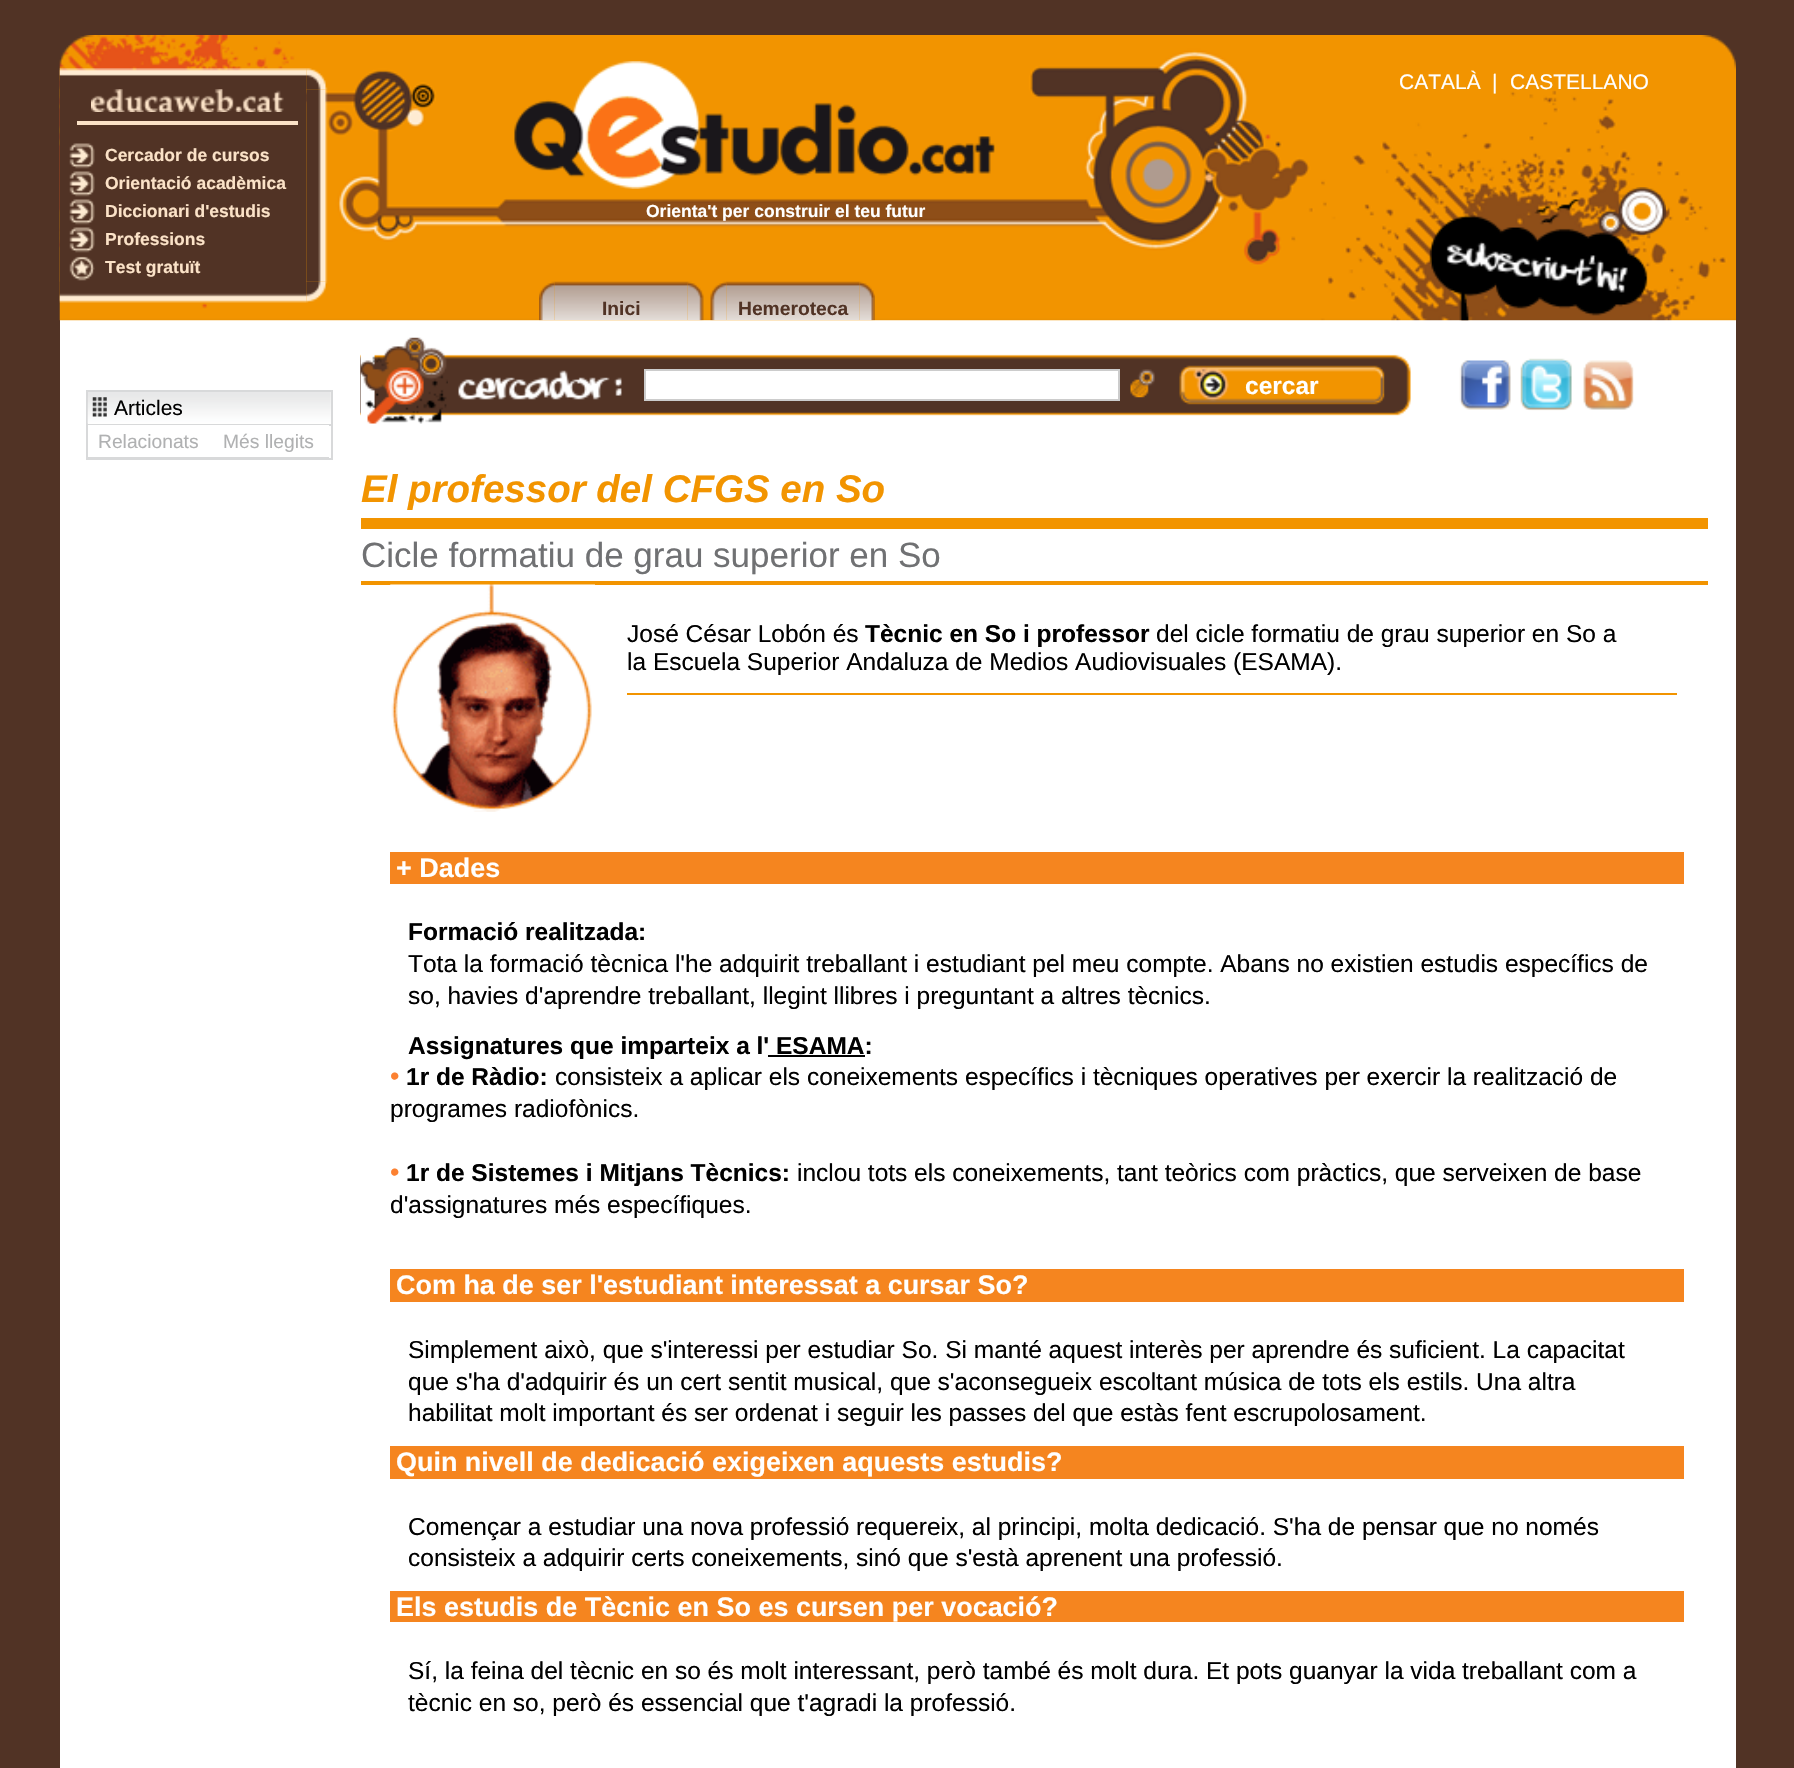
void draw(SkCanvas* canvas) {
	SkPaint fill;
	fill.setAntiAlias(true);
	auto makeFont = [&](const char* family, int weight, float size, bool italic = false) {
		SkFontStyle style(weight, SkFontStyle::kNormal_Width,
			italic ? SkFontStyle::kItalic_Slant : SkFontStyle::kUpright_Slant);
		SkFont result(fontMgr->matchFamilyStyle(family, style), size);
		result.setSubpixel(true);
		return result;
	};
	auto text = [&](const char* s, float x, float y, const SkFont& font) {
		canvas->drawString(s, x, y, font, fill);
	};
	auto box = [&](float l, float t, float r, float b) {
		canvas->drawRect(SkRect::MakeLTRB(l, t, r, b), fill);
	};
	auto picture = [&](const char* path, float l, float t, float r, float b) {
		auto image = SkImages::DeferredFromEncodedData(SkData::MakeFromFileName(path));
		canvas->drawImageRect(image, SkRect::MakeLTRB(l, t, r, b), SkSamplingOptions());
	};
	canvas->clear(0xFF513325);
	fill.setColor(0xFFFFFFFF);
	box(60, 320, 1736, 1768);
	picture("image0.png", 59, 35, 1736, 321);
	picture("image1.png", 1429, 187, 1666, 321);
	picture("image2.png", 59, 68, 307, 90);
	picture("image3.png", 306, 68, 328, 90);
	fill.setColor(0xFF513325);
	box(60, 89, 306, 282);
	picture("image4.png", 91, 89, 284, 112);
	fill.setColor(0xFFFBE2C7);
	box(77, 121, 298, 125);
	picture("image5.png", 69, 143, 95, 169);
	picture("image5.png", 69, 171, 95, 197);
	picture("image5.png", 69, 199, 95, 225);
	picture("image5.png", 69, 227, 95, 253);
	picture("image6.png", 69, 256, 95, 281);
	picture("image7.png", 306, 89, 328, 282);
	picture("image8.png", 59, 281, 307, 303);
	picture("image9.png", 306, 281, 328, 303);
	picture("image10.png", 514, 61, 995, 189);
	picture("image11.png", 539, 281, 555, 321);
	picture("image12.png", 554, 281, 688, 320);
	picture("image13.png", 687, 281, 704, 321);
	picture("image14.png", 710, 281, 727, 321);
	picture("image15.png", 726, 281, 860, 320);
	picture("image16.png", 859, 281, 875, 321);
	fill.setStyle(SkPaint::kStroke_Style);
	fill.setStrokeWidth(2);
	fill.setColor(0xFFD8D9DA);
	canvas->drawRect(SkRect::MakeLTRB(87, 391, 332, 459), fill);
	picture("image17.png", 87, 392, 331, 424);
	fill.setStyle(SkPaint::kFill_Style);
	box(88, 424, 331, 426);
	picture("image18.png", 92, 397, 107, 417);
	fill.setColor(0xFFFFFFFF);
	box(88, 425, 329, 426);
	fill.setColor(0xFFD8D9DA);
	box(88, 457, 329, 458);
	picture("image19.png", 360, 354, 1393, 416);
	fill.setColor(0xFFFFFFFF);
	box(361, 354, 448, 416);
	picture("image20.png", 360, 337, 448, 424);
	picture("image21.png", 458, 370, 622, 400);
	canvas->drawRect(SkRect::MakeLTRB(645, 370, 1119, 400), fill);
	fill.setStyle(SkPaint::kStroke_Style);
	fill.setColor(0xFFCCCCCC);
	canvas->drawRect(SkRect::MakeLTRB(645, 370, 1119, 400), fill);
	picture("image22.png", 1130, 369, 1155, 398);
	picture("image23.png", 1179, 365, 1385, 405);
	picture("image24.png", 1393, 354, 1411, 416);
	picture("image25.png", 1459, 360, 1511, 410);
	picture("image26.png", 1520, 358, 1572, 411);
	picture("image27.png", 1583, 360, 1634, 410);
	fill.setStyle(SkPaint::kFill_Style);
	fill.setColor(0xFFF29400);
	box(361, 518, 1708, 529);
	box(361, 581, 1708, 585);
	picture("image28.png", 390, 584, 595, 812);
	box(627, 693, 1677, 695);
	fill.setColor(0xFFF5851F);
	box(390, 852, 1684, 884);
	fill.setColor(0xFF000000);
	box(768, 1055, 865, 1057);
	fill.setColor(0xFFF5851F);
	box(390, 1269, 1684, 1302);
	box(390, 1446, 1684, 1479);
	box(390, 1591, 1684, 1622);
	auto font1 = makeFont("Liberation Sans", 400, 21);
	fill.setColor(0xFFFFFFFF);
	text("CATALÀ", 1399, 89, font1);
	text("|", 1492, 89, font1);
	text("CASTELLANO", 1510, 89, font1);
	auto font2 = makeFont("Liberation Sans", 700, 17.5f);
	fill.setColor(0xFFFBE2C7);
	text("Cercador de cursos", 105, 161, font2);
	text("Orientació acadèmica", 105, 189, font2);
	text("Diccionari d'estudis", 105, 217, font2);
	text("Professions", 105, 245, font2);
	text("Test gratuït", 105, 273, font2);
	fill.setColor(0xFFFFFFFF);
	text("Orienta't per construir el teu futur", 646, 217, font2);
	auto font3 = makeFont("Liberation Sans", 700, 19.25f);
	fill.setColor(0xFF513325);
	text("Inici", 602, 315, font3);
	text("Hemeroteca", 738, 315, font3);
	fill.setColor(0xFF000000);
	text("Articles", 114, 415, font1);
	auto font4 = makeFont("Liberation Sans", 400, 19.25f);
	fill.setColor(0xFFB0B1B2);
	text("Relacionats", 98, 448, font4);
	text("Més llegits", 223, 448, font4);
	auto font5 = makeFont("Liberation Sans", 700, 24.5f);
	fill.setColor(0xFFFFFFFF);
	text("cercar", 1245, 394, font5);
	auto font6 = makeFont("Liberation Sans", 700, 38.5f, true);
	fill.setColor(0xFFF29400);
	text("El professor del CFGS en So", 361, 502, font6);
	auto font7 = makeFont("Liberation Sans", 400, 35);
	fill.setColor(0xFF707173);
	text("Cicle formatiu de grau superior en So", 361, 567, font7);
	auto font8 = makeFont("Liberation Sans", 400, 24.5f);
	fill.setColor(0xFF000000);
	text("José César Lobón és", 627, 642, font8);
	text("Tècnic en So i professor", 865, 642, font5);
	text("del cicle formatiu de grau superior en So a", 1156, 642, font8);
	text("la Escuela Superior Andaluza de Medios Audiovisuales (ESAMA).", 627, 670, font8);
	auto font9 = makeFont("Liberation Sans", 700, 26.95f);
	fill.setColor(0xFFFFFFFF);
	text("+ Dades", 396, 877, font9);
	fill.setColor(0xFF000000);
	text("Formació realitzada:", 408, 940, font5);
	text("Tota la formació tècnica l'he adquirit treballant i estudiant pel meu compte. Abans no existien estudis específics de", 408, 972, font8);
	text("so, havies d'aprendre treballant, llegint llibres i preguntant a altres tècnics.", 408, 1004, font8);
	text("Assignatures que imparteix a l' ESAMA:", 408, 1054, font5);
	auto font10 = makeFont("Liberation Sans", 400, 26.95f);
	fill.setColor(0xFFFC8131);
	text("•", 390, 1085, font10);
	fill.setColor(0xFF000000);
	text("1r de Ràdio:", 406, 1085, font5);
	text("consisteix a aplicar els coneixements específics i tècniques operatives per exercir la realització de", 555, 1085, font8);
	text("programes radiofònics.", 390, 1117, font8);
	fill.setColor(0xFFFC8131);
	text("•", 390, 1181, font10);
	fill.setColor(0xFF000000);
	text("1r de Sistemes i Mitjans Tècnics:", 406, 1181, font5);
	text("inclou tots els coneixements, tant teòrics com pràctics, que serveixen de base", 797, 1181, font8);
	text("d'assignatures més específiques.", 390, 1213, font8);
	fill.setColor(0xFFFFFFFF);
	text("Com ha de ser l'estudiant interessat a cursar So?", 396, 1294, font9);
	fill.setColor(0xFF000000);
	text("Simplement això, que s'interessi per estudiar So. Si manté aquest interès per aprendre és suficient. La capacitat", 408, 1358, font8);
	text("que s'ha d'adquirir és un cert sentit musical, que s'aconsegueix escoltant música de tots els estils. Una altra", 408, 1390, font8);
	text("habilitat molt important és ser ordenat i seguir les passes del que estàs fent escrupolosament.", 408, 1421, font8);
	fill.setColor(0xFFFFFFFF);
	text("Quin nivell de dedicació exigeixen aquests estudis?", 396, 1471, font9);
	fill.setColor(0xFF000000);
	text("Començar a estudiar una nova professió requereix, al principi, molta dedicació. S'ha de pensar que no només", 408, 1535, font8);
	text("consisteix a adquirir certs coneixements, sinó que s'està aprenent una professió.", 408, 1566, font8);
	fill.setColor(0xFFFFFFFF);
	text("Els estudis de Tècnic en So es cursen per vocació?", 396, 1616, font9);
	fill.setColor(0xFF000000);
	text("Sí, la feina del tècnic en so és molt interessant, però també és molt dura. Et pots guanyar la vida treballant com a", 408, 1679, font8);
	text("tècnic en so, però és essencial que t'agradi la professió.", 408, 1711, font8);
}
